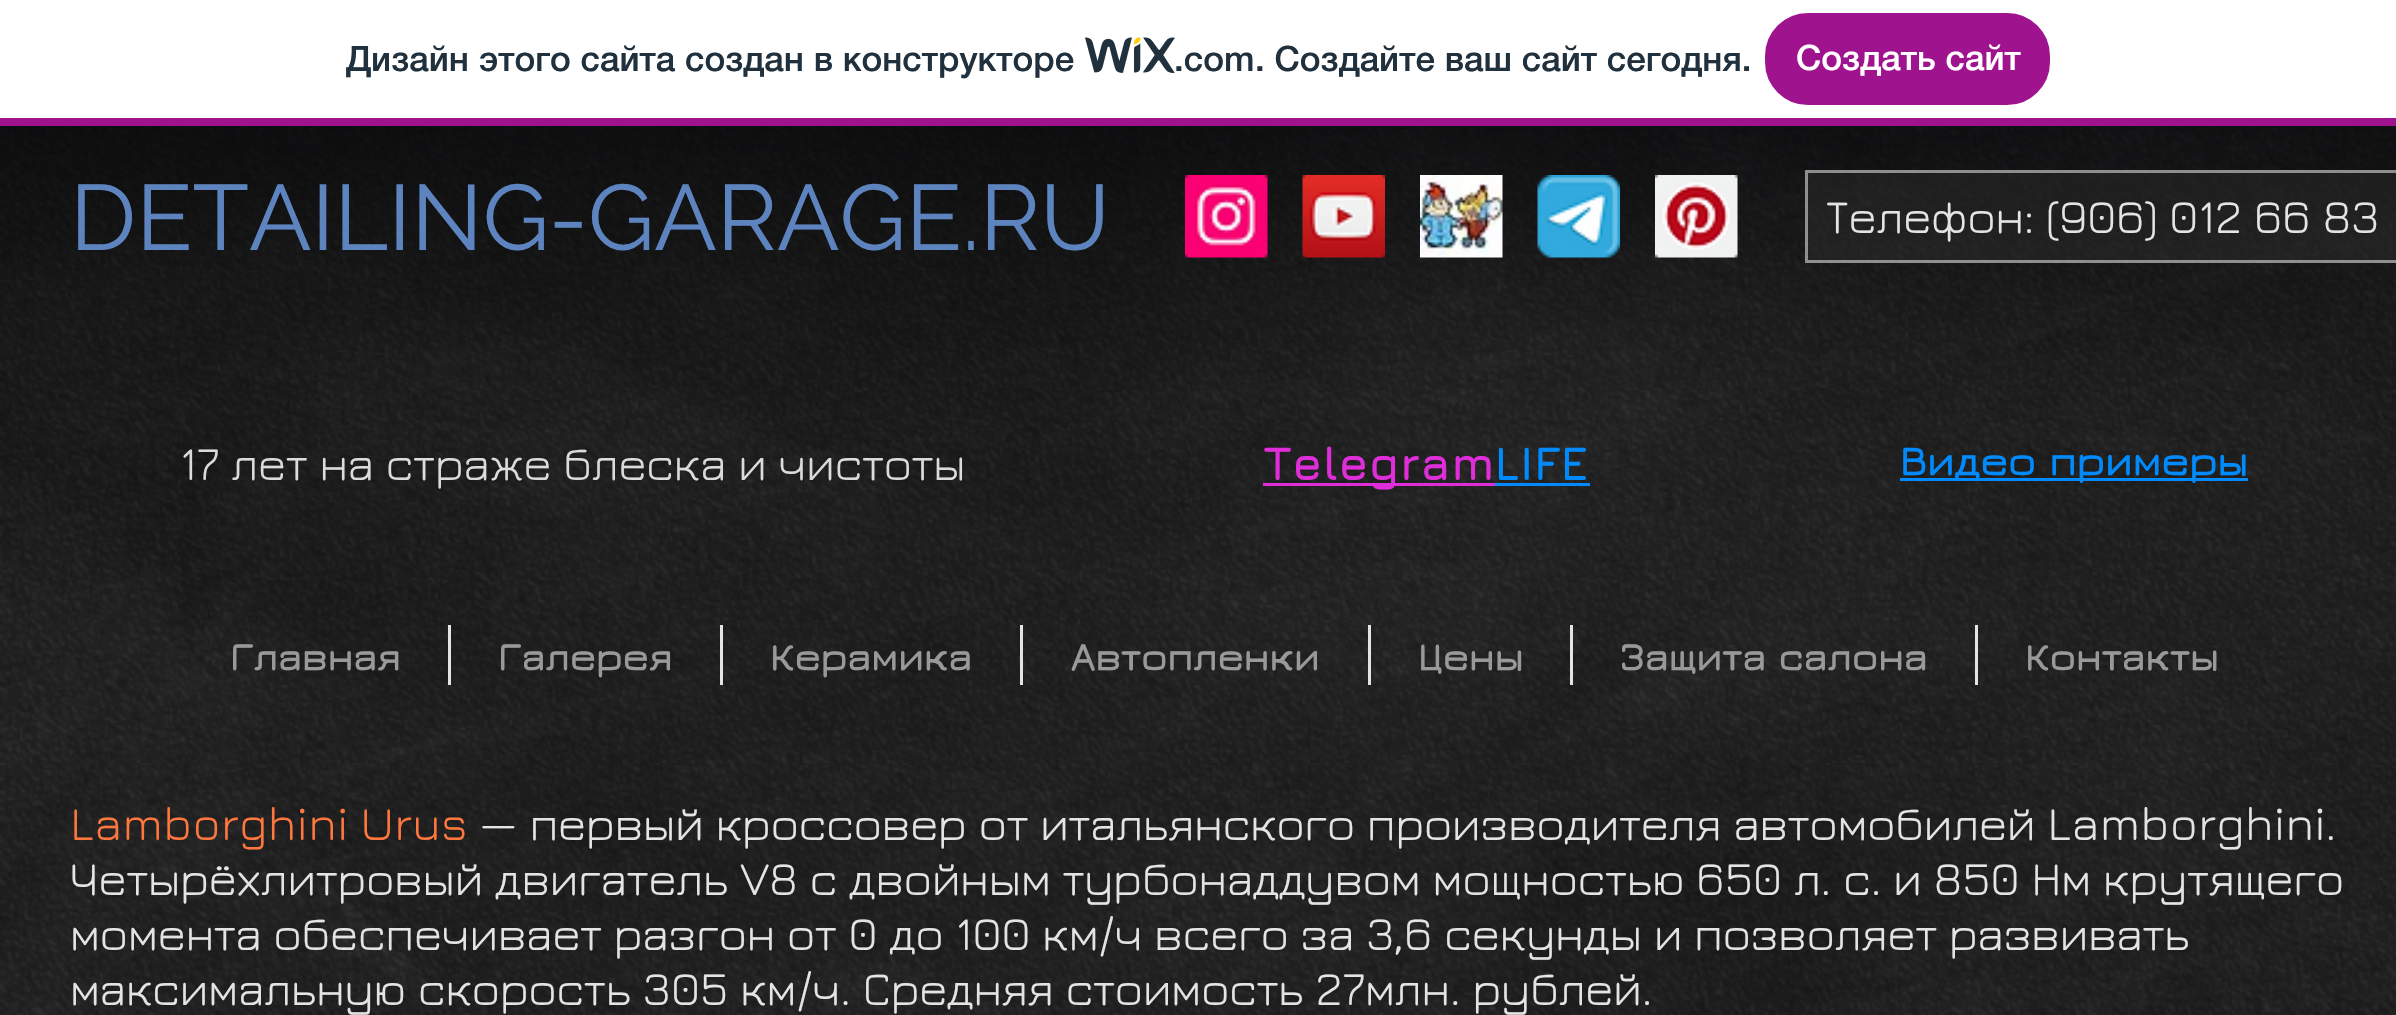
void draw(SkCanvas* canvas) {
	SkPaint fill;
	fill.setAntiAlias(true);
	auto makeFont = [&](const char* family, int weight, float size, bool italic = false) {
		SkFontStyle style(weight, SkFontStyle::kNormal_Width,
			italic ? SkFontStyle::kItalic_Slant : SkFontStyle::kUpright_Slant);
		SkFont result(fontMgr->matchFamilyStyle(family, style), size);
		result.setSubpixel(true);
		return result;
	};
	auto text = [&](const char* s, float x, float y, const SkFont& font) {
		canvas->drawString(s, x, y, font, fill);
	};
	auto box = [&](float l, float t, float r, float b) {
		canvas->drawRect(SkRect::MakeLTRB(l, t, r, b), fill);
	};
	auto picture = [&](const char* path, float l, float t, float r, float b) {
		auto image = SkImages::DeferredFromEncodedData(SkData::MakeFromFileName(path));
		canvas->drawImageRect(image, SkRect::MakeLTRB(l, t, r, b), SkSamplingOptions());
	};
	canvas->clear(0xFFFFFFFF);
	fill.setColor(0xFFA0138E);
	box(0, 118, 2396, 126);
	picture("image0.png", 1085, 37, 1175, 73);
	canvas->drawRoundRect(SkRect::MakeLTRB(1766.5f, 14.5f, 2048.5f, 103.5f), 41.5f, 41.5f, fill);
	fill.setStyle(SkPaint::kStroke_Style);
	fill.setStrokeWidth(3);
	canvas->drawRoundRect(SkRect::MakeLTRB(1766.5f, 14.5f, 2048.5f, 103.5f), 41.5f, 41.5f, fill);
	fill.setStyle(SkPaint::kFill_Style);
	fill.setColor(0xFF000000);
	box(0, 126, 2396, 1015);
	picture("image1.png", 0, 126, 2396, 1015);
	picture("image2.png", 1185, 175, 1268, 258);
	picture("image3.png", 1302, 175, 1385, 258);
	picture("image4.png", 1420, 175, 1503, 258);
	picture("image5.png", 1537, 175, 1620, 258);
	picture("image6.png", 1655, 175, 1738, 258);
	fill.setColor(0x59333333);
	box(1805, 170, 2396, 263);
	fill.setStyle(SkPaint::kStroke_Style);
	fill.setColor(0x8FE4E4E4);
	canvas->drawRect(SkRect::MakeLTRB(1806.5f, 171.5f, 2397.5f, 261.5f), fill);
	fill.setStyle(SkPaint::kFill_Style);
	fill.setColor(0xFFE02DDA);
	box(1263, 483, 1495, 486);
	fill.setColor(0xFF008AFC);
	box(1495, 483, 1590, 486);
	box(1900, 478, 2248, 481);
	fill.setColor(0xFFE4E4E4);
	box(448, 625, 451, 685);
	box(720, 625, 723, 685);
	box(1020, 625, 1023, 685);
	box(1368, 625, 1371, 685);
	box(1570, 625, 1573, 685);
	box(1975, 625, 1978, 685);
	auto font1 = makeFont("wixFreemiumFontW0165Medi", 500, 35);
	fill.setColor(0xFF20303C);
	text("Дизайн этого сайта создан в конструкторе", 346, 71, font1);
	auto font2 = makeFont("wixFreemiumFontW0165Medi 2", 500, 35);
	text(".com", 1174, 71, font2);
	text(". Создайте ваш сайт сегодня.", 1255, 71, font1);
	fill.setColor(0xFFFFFFFF);
	text("Создать сайт", 1796, 70, font1);
	auto font3 = makeFont("Raleway", 400, 92.5f);
	fill.setColor(0xFF5D84BF);
	text("DETAILING-GARAGE.RU", 70, 250, font3);
	auto font4 = makeFont("Jura", 400, 47.5f);
	fill.setColor(0xFFE4E4E4);
	text("Телефон: (906) 012 66 83", 1826, 233, font4);
	fill.setColor(0xFFDBDBDB);
	text("17 лет на страже блеска и чистоты", 180, 480, font4);
	auto font5 = makeFont("Jura", 700, 47.5f);
	fill.setColor(0xFFE02DDA);
	text("Telegram", 1263, 480, font5);
	fill.setColor(0xFF008AFC);
	text("LIFE", 1494, 480, font5);
	auto font6 = makeFont("Jura", 700, 42.5f);
	text("Видео примеры", 1900, 475, font6);
	auto font7 = makeFont("Jura", 700, 40);
	fill.setColor(0xFF999999);
	text("Главная", 230, 670, font7);
	text("Галерея", 498, 670, font7);
	text("Керамика", 770, 670, font7);
	text("Автопленки", 1071, 670, font7);
	text("Цены", 1418, 670, font7);
	text("Защита салона", 1620, 670, font7);
	text("Контакты", 2025, 670, font7);
	fill.setColor(0xFFFF773D);
	text("Lamborghini Urus", 70, 840, font4);
	fill.setColor(0xFFE4E4E4);
	text("— первый кроссовер от итальянского производителя автомобилей Lamborghini.", 479, 840, font4);
	text("Четырёхлитровый двигатель V8 с двойным турбонаддувом мощностью 650 л. с. и 850 Нм крутящего", 70, 895, font4);
	text("момента обеспечивает разгон от 0 до 100 км/ч всего за 3,6 секунды и позволяет развивать", 70, 950, font4);
	text("максимальную скорость 305 км/ч. Средняя стоимость 27млн. рублей.", 70, 1005, font4);
}
